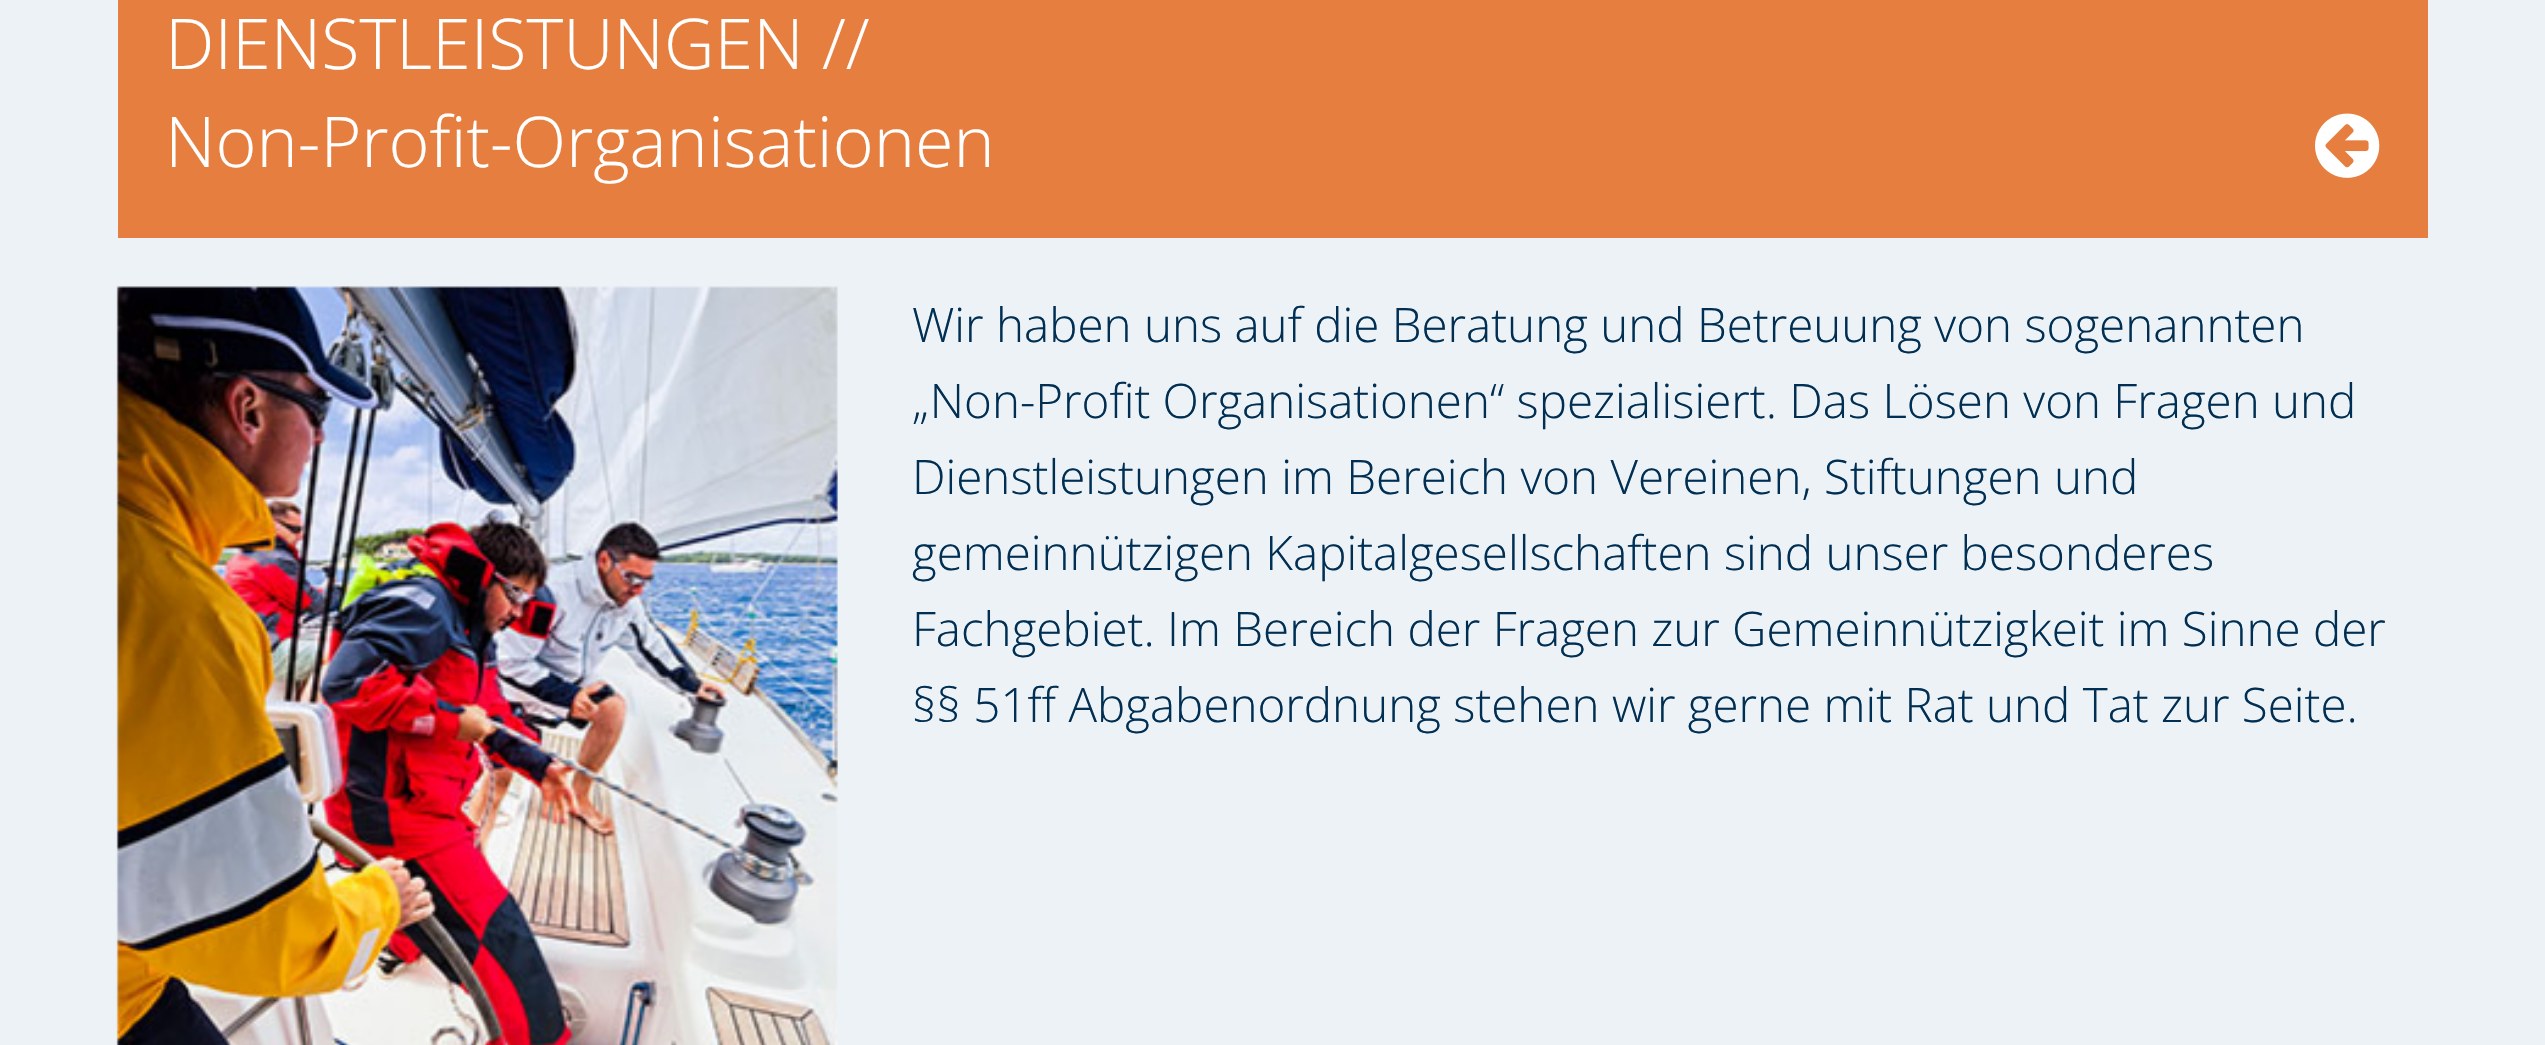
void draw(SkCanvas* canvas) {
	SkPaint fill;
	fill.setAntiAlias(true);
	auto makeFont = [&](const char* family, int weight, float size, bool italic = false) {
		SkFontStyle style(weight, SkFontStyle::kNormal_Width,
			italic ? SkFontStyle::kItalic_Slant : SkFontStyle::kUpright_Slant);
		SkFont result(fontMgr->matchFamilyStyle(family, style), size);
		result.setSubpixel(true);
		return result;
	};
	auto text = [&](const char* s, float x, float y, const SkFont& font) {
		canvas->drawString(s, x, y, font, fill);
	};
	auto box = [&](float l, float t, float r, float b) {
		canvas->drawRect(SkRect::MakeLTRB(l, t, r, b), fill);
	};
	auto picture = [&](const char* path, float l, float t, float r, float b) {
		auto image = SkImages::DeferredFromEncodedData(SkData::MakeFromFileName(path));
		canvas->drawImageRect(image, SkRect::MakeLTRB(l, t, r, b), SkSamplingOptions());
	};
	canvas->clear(0xFFECF2F6);
	fill.setColor(0xFFE57E3E);
	box(118, 0, 2428, 238);
	picture("image0.png", 2315, 113, 2380, 178);
	picture("image1.png", 116, 286, 838, 1045);
	auto font1 = makeFont("Open Sans", 300, 70);
	fill.setColor(0xFFFFFFFF);
	text("DIENSTLEISTUNGEN //", 165, 69, font1);
	text("Non-Profit-Organisationen", 165, 167, font1);
	auto font2 = makeFont("Open Sans", 300, 47.5f);
	fill.setColor(0xFF002F53);
	text("Wir haben uns auf die Beratung und Betreuung von sogenannten", 912, 342, font2);
	text("„Non-Profit Organisationen“ spezialisiert. Das Lösen von Fragen und", 912, 418, font2);
	text("Dienstleistungen im Bereich von Vereinen, Stiftungen und", 912, 494, font2);
	text("gemeinnützigen Kapitalgesellschaften sind unser besonderes", 912, 570, font2);
	text("Fachgebiet. Im Bereich der Fragen zur Gemeinnützigkeit im Sinne der", 912, 646, font2);
	text("§§ 51ff Abgabenordnung stehen wir gerne mit Rat und Tat zur Seite.", 912, 722, font2);
}
